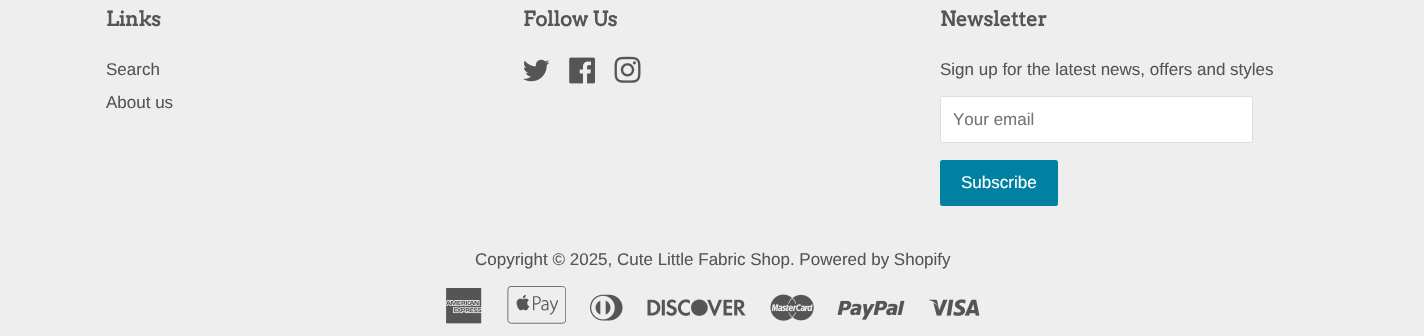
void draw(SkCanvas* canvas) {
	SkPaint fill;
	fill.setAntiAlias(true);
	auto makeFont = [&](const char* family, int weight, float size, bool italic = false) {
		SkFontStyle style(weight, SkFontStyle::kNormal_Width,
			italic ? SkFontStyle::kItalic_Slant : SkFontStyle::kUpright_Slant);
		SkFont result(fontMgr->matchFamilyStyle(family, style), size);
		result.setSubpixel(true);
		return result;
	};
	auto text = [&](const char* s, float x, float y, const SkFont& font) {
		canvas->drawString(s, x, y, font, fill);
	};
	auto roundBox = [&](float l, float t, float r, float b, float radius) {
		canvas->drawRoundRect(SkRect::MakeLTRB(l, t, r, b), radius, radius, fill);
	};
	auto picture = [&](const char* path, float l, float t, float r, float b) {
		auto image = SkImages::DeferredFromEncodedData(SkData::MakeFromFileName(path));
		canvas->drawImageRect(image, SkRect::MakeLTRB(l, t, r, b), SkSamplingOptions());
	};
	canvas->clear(0xFFEEEEEE);
	picture("image0.png", 523, 59, 550, 82);
	picture("image1.png", 569, 57, 595, 84);
	picture("image2.png", 614, 56, 641, 83);
	fill.setColor(0xFFFFFFFF);
	canvas->drawRoundRect(SkRect::MakeLTRB(940.5f, 96.5f, 1252.5f, 142.5f), 2, 2, fill);
	fill.setStyle(SkPaint::kStroke_Style);
	fill.setStrokeWidth(1);
	fill.setColor(0xFFDDDDDD);
	canvas->drawRoundRect(SkRect::MakeLTRB(940.5f, 96.5f, 1252.5f, 142.5f), 2, 2, fill);
	fill.setStyle(SkPaint::kFill_Style);
	fill.setColor(0xFF0081A3);
	roundBox(940, 160, 1058, 206, 2.5f);
	picture("image3.png", 446, 288, 482, 324);
	picture("image4.png", 507, 286, 566, 324);
	picture("image5.png", 590, 294, 623, 321);
	picture("image6.png", 647, 299, 746, 316);
	picture("image7.png", 770, 294, 814, 321);
	picture("image8.png", 837, 300, 905, 320);
	picture("image9.png", 928, 299, 980, 316);
	auto font1 = makeFont("Arvo", 700, 20);
	fill.setColor(0xFF555555);
	text("Links", 106, 26, font1);
	auto font2 = makeFont("Liberation Sans", 400, 17);
	text("Search", 106, 75, font2);
	text("About us", 106, 108, font2);
	text("Follow Us", 523, 26, font1);
	text("Newsletter", 940, 26, font1);
	text("Sign up for the latest news, offers and styles", 940, 75, font2);
	fill.setColor(0xFF757575);
	text("Your email", 953, 125, font2);
	fill.setColor(0xFFFFFFFF);
	text("Subscribe", 961, 188, font2);
	fill.setColor(0xFF555555);
	text("Copyright © 2025, Cute Little Fabric Shop. Powered by Shopify", 475, 265, font2);
}
